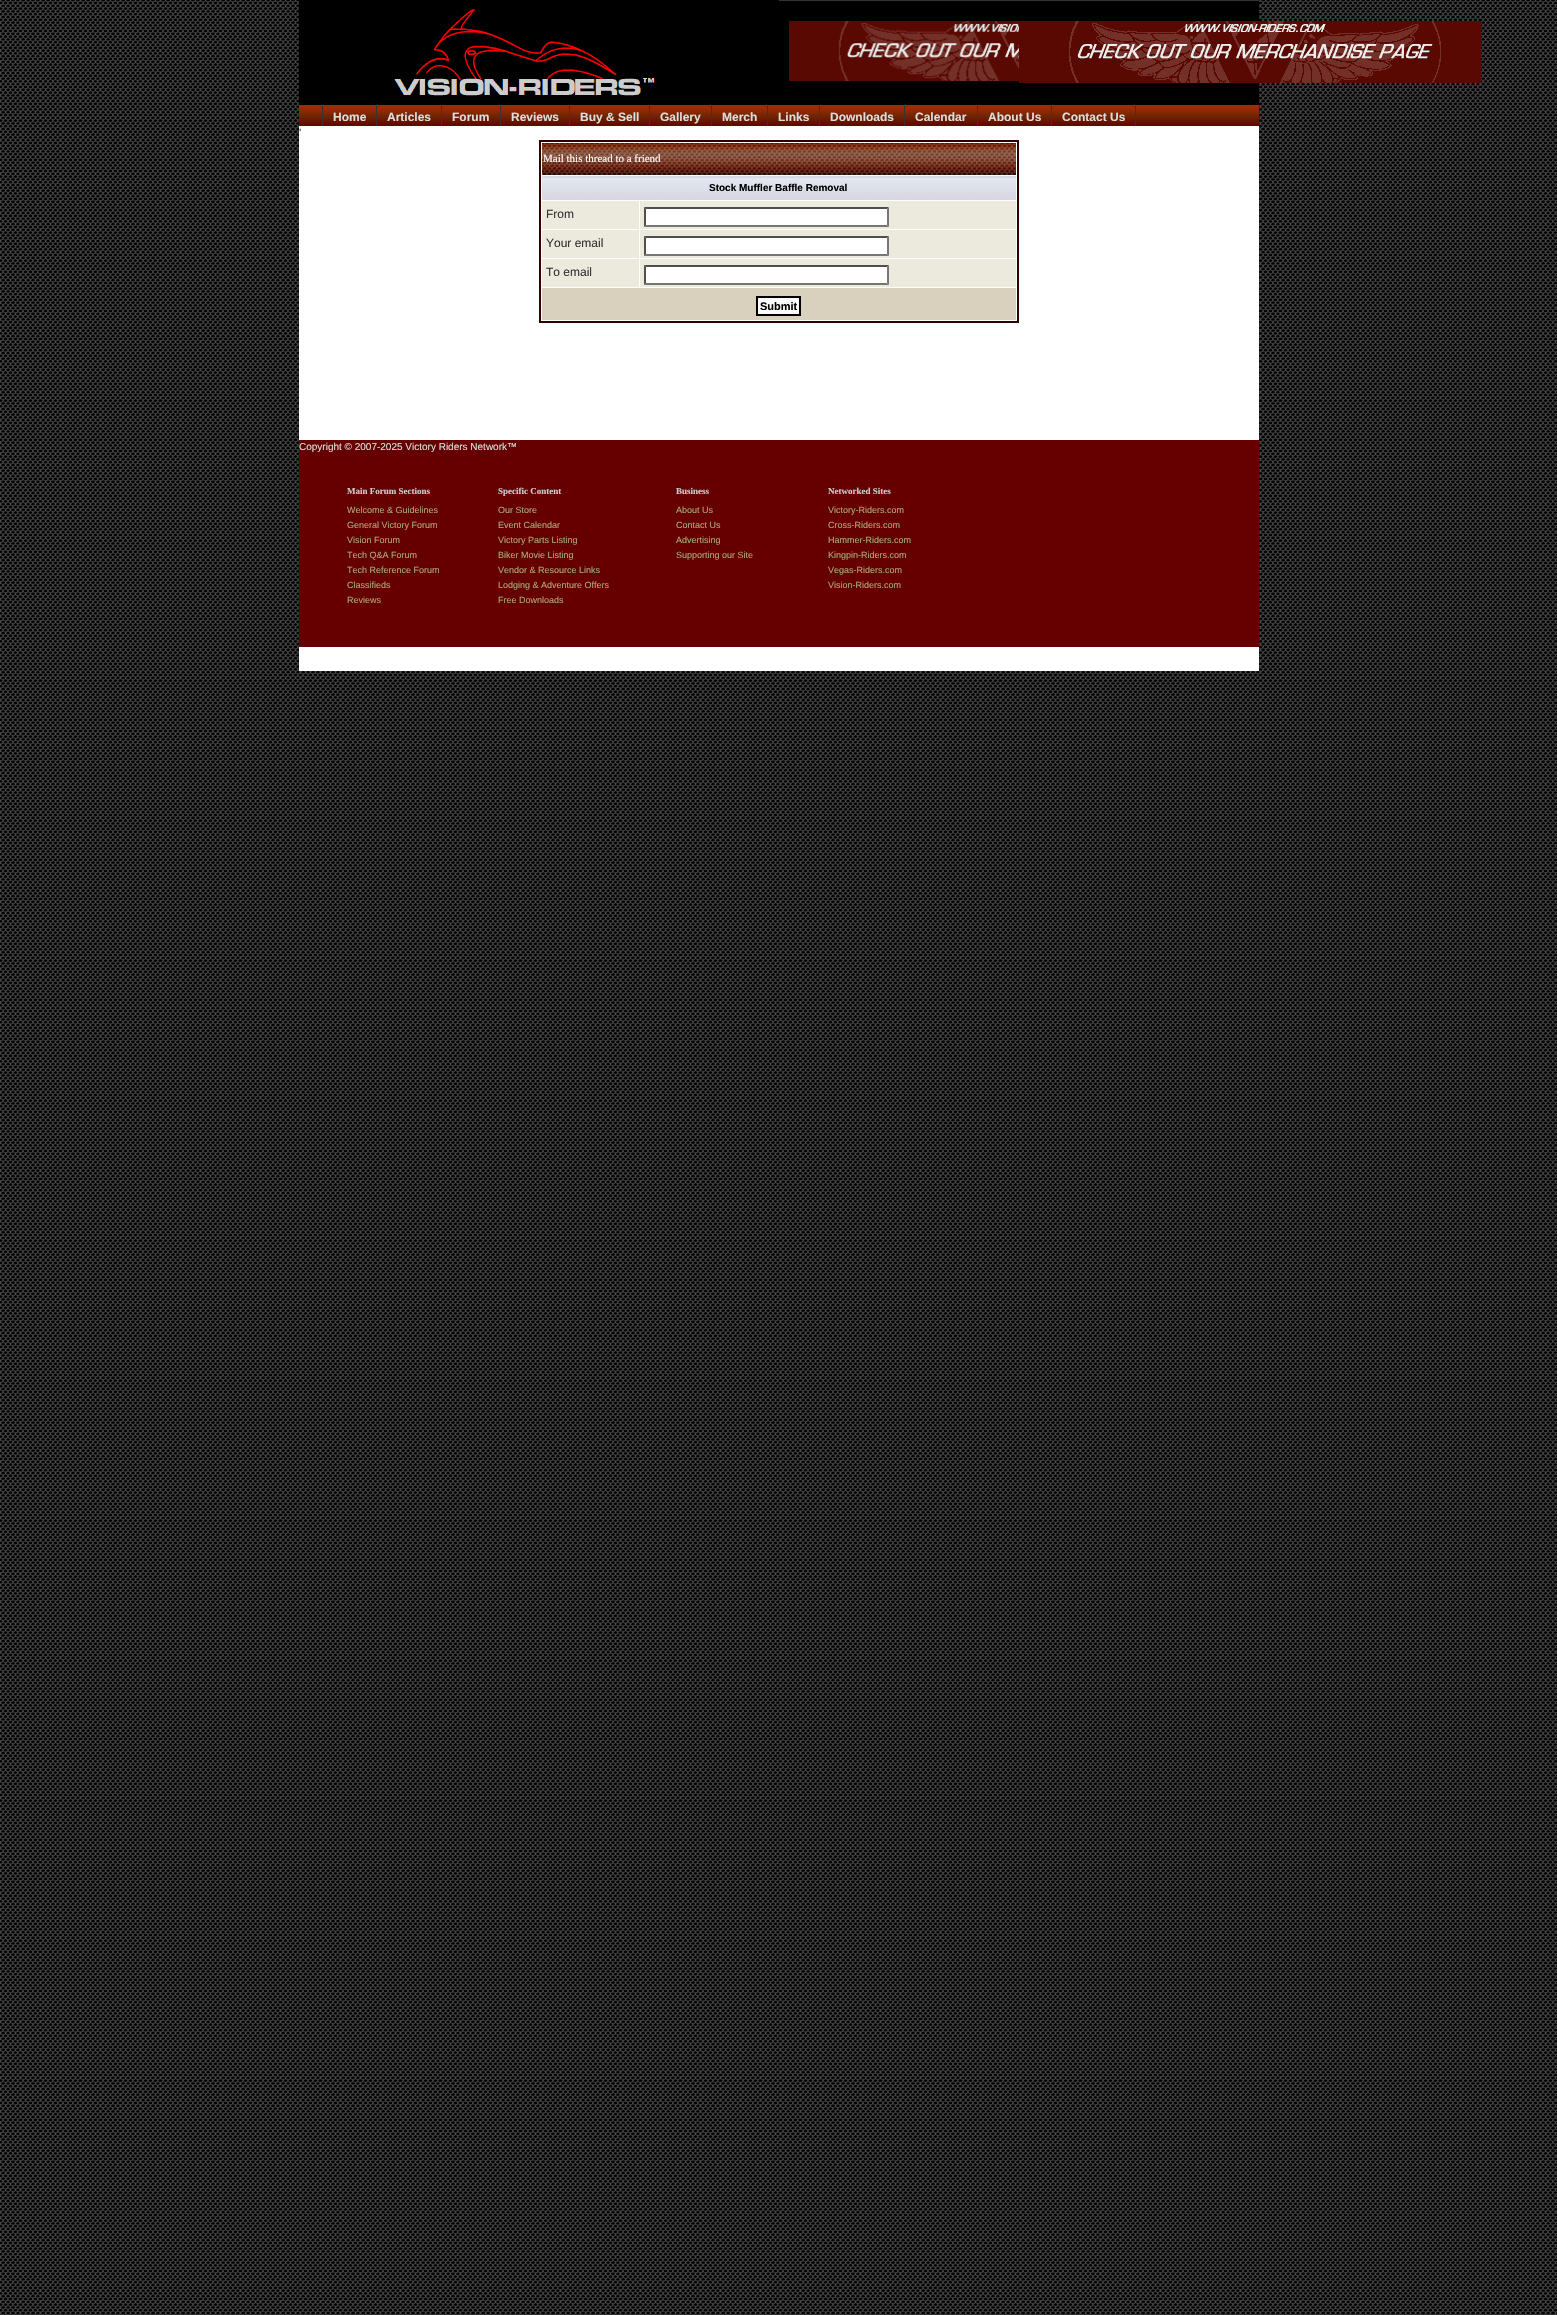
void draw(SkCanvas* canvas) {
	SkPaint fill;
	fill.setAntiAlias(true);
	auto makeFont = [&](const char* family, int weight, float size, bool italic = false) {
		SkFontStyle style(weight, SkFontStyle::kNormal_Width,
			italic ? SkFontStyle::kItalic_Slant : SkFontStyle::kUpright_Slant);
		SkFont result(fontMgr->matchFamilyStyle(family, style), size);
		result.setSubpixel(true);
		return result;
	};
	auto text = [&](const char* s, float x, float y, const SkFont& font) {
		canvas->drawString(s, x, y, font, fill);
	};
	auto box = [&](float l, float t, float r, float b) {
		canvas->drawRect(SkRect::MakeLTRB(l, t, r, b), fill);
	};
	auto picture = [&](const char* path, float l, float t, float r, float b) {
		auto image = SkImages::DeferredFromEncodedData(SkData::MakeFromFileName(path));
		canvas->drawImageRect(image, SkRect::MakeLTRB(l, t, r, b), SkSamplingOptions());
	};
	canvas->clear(0xFFFFFFFF);
	picture("image0.png", 0, 0, 1557, 2315);
	fill.setColor(0xFF000000);
	box(299, 0, 1259, 105);
	picture("image1.png", 394, 9, 655, 96);
	fill.setColor(0xFF333333);
	box(779, 0, 1259, 1);
	picture("image2.png", 789, 21, 1019, 81);
	picture("image3.png", 1019, 21, 1481, 83);
	picture("image4.png", 299, 105, 322, 126);
	box(322, 105, 323, 126);
	picture("image5.png", 323, 105, 376, 126);
	box(376, 105, 377, 126);
	picture("image6.png", 377, 105, 441, 126);
	box(441, 105, 442, 126);
	picture("image7.png", 442, 105, 500, 126);
	box(500, 105, 501, 126);
	picture("image8.png", 501, 105, 569, 126);
	box(569, 105, 570, 126);
	picture("image9.png", 570, 105, 649, 126);
	box(649, 105, 650, 126);
	picture("image10.png", 650, 105, 711, 126);
	box(711, 105, 712, 126);
	picture("image11.png", 712, 105, 767, 126);
	box(767, 105, 768, 126);
	picture("image12.png", 768, 105, 819, 126);
	box(819, 105, 820, 126);
	picture("image13.png", 820, 105, 904, 126);
	box(904, 105, 905, 126);
	picture("image14.png", 905, 105, 977, 126);
	box(977, 105, 978, 126);
	picture("image15.png", 978, 105, 1051, 126);
	box(1051, 105, 1052, 126);
	picture("image16.png", 1052, 105, 1135, 126);
	box(1135, 105, 1136, 126);
	picture("image17.png", 1136, 105, 1259, 126);
	fill.setColor(0xFFFFFFFF);
	box(299, 126, 1259, 671);
	fill.setStyle(SkPaint::kStroke_Style);
	fill.setStrokeWidth(2);
	fill.setColor(0xFF330000);
	canvas->drawRect(SkRect::MakeLTRB(540, 141, 1018, 322), fill);
	picture("image18.png", 542, 143, 1016, 175);
	picture("image19.png", 542, 176, 1016, 200);
	fill.setStyle(SkPaint::kFill_Style);
	fill.setColor(0xFFECE9DD);
	box(542, 201, 639, 229);
	box(640, 201, 1016, 229);
	fill.setColor(0xFFFFFFFF);
	box(644, 207, 889, 227);
	fill.setColor(0xFF4F4F4F);
	canvas->drawPath(SkPathBuilder().moveTo(644, 207).lineTo(889, 207).lineTo(887, 209).lineTo(646, 209).close().detach(), fill);
	fill.setColor(0xFF767676);
	canvas->drawPath(SkPathBuilder().moveTo(889, 207).lineTo(889, 227).lineTo(887, 225).lineTo(887, 209).close().detach(), fill);
	canvas->drawPath(SkPathBuilder().moveTo(889, 227).lineTo(644, 227).lineTo(646, 225).lineTo(887, 225).close().detach(), fill);
	fill.setColor(0xFF4F4F4F);
	canvas->drawPath(SkPathBuilder().moveTo(644, 227).lineTo(644, 207).lineTo(646, 209).lineTo(646, 225).close().detach(), fill);
	fill.setColor(0xFFECE9DD);
	box(542, 230, 639, 258);
	box(640, 230, 1016, 258);
	fill.setColor(0xFFFFFFFF);
	box(644, 236, 889, 256);
	fill.setColor(0xFF4F4F4F);
	canvas->drawPath(SkPathBuilder().moveTo(644, 236).lineTo(889, 236).lineTo(887, 238).lineTo(646, 238).close().detach(), fill);
	fill.setColor(0xFF767676);
	canvas->drawPath(SkPathBuilder().moveTo(889, 236).lineTo(889, 256).lineTo(887, 254).lineTo(887, 238).close().detach(), fill);
	canvas->drawPath(SkPathBuilder().moveTo(889, 256).lineTo(644, 256).lineTo(646, 254).lineTo(887, 254).close().detach(), fill);
	fill.setColor(0xFF4F4F4F);
	canvas->drawPath(SkPathBuilder().moveTo(644, 256).lineTo(644, 236).lineTo(646, 238).lineTo(646, 254).close().detach(), fill);
	fill.setColor(0xFFECE9DD);
	box(542, 259, 639, 287);
	box(640, 259, 1016, 287);
	fill.setColor(0xFFFFFFFF);
	box(644, 265, 889, 285);
	fill.setColor(0xFF4F4F4F);
	canvas->drawPath(SkPathBuilder().moveTo(644, 265).lineTo(889, 265).lineTo(887, 267).lineTo(646, 267).close().detach(), fill);
	fill.setColor(0xFF767676);
	canvas->drawPath(SkPathBuilder().moveTo(889, 265).lineTo(889, 285).lineTo(887, 283).lineTo(887, 267).close().detach(), fill);
	canvas->drawPath(SkPathBuilder().moveTo(889, 285).lineTo(644, 285).lineTo(646, 283).lineTo(887, 283).close().detach(), fill);
	fill.setColor(0xFF4F4F4F);
	canvas->drawPath(SkPathBuilder().moveTo(644, 285).lineTo(644, 265).lineTo(646, 267).lineTo(646, 283).close().detach(), fill);
	fill.setColor(0xFFD9D0BE);
	box(542, 288, 1016, 320);
	fill.setColor(0xFFFAFAFA);
	canvas->drawRect(SkRect::MakeLTRB(757, 297, 800, 315), fill);
	fill.setStyle(SkPaint::kStroke_Style);
	fill.setColor(0xFF000000);
	canvas->drawRect(SkRect::MakeLTRB(757, 297, 800, 315), fill);
	fill.setStyle(SkPaint::kFill_Style);
	fill.setColor(0xFF660000);
	box(299, 440, 1259, 647);
	auto font1 = makeFont("Liberation Sans", 700, 12);
	fill.setColor(0xFFDDDDDD);
	text("Home", 333, 121, font1);
	text("Articles", 387, 121, font1);
	text("Forum", 452, 121, font1);
	text("Reviews", 511, 121, font1);
	text("Buy & Sell", 580, 121, font1);
	text("Gallery", 660, 121, font1);
	text("Merch", 722, 121, font1);
	text("Links", 778, 121, font1);
	text("Downloads", 830, 121, font1);
	text("Calendar", 915, 121, font1);
	text("About Us", 988, 121, font1);
	text("Contact Us", 1062, 121, font1);
	auto font2 = makeFont("Liberation Sans", 400, 12);
	fill.setColor(0xFF444444);
	text("'", 299, 137, font2);
	auto font3 = makeFont("Liberation Serif", 400, 11);
	fill.setColor(0xFFFFFFFF);
	text("Mail this thread to a friend", 543, 162, font3);
	auto font4 = makeFont("Liberation Sans", 700, 10);
	fill.setColor(0xFF000000);
	text("Stock Muffler Baffle Removal", 709, 191, font4);
	fill.setColor(0xFF333333);
	text("From", 546, 218, font2);
	text("Your email", 546, 247, font2);
	text("To email", 546, 276, font2);
	auto font5 = makeFont("Liberation Sans", 700, 11);
	fill.setColor(0xFF000000);
	text("Submit", 760, 310, font5);
	auto font6 = makeFont("Liberation Sans", 400, 10);
	fill.setColor(0xFFDDDDDD);
	text("Copyright © 2007-2025 Victory Riders Network™", 299, 450, font6);
	auto font7 = makeFont("Liberation Serif", 700, 9);
	fill.setColor(0xFFCCCCCC);
	text("Main Forum Sections", 347, 494, font7);
	auto font8 = makeFont("Liberation Sans", 400, 9);
	fill.setColor(0xFFAAAA77);
	text("Welcome & Guidelines", 347, 513, font8);
	text("General Victory Forum", 347, 528, font8);
	text("Vision Forum", 347, 543, font8);
	text("Tech Q&A Forum", 347, 558, font8);
	text("Tech Reference Forum", 347, 573, font8);
	text("Classifieds", 347, 588, font8);
	text("Reviews", 347, 603, font8);
	fill.setColor(0xFFCCCCCC);
	text("Specific Content", 498, 494, font7);
	fill.setColor(0xFFAAAA77);
	text("Our Store", 498, 513, font8);
	text("Event Calendar", 498, 528, font8);
	text("Victory Parts Listing", 498, 543, font8);
	text("Biker Movie Listing", 498, 558, font8);
	text("Vendor & Resource Links", 498, 573, font8);
	text("Lodging & Adventure Offers", 498, 588, font8);
	text("Free Downloads", 498, 603, font8);
	fill.setColor(0xFFCCCCCC);
	text("Business", 676, 494, font7);
	fill.setColor(0xFFAAAA77);
	text("About Us", 676, 513, font8);
	text("Contact Us", 676, 528, font8);
	text("Advertising", 676, 543, font8);
	text("Supporting our Site", 676, 558, font8);
	fill.setColor(0xFFCCCCCC);
	text("Networked Sites", 828, 494, font7);
	fill.setColor(0xFFAAAA77);
	text("Victory-Riders.com", 828, 513, font8);
	text("Cross-Riders.com", 828, 528, font8);
	text("Hammer-Riders.com", 828, 543, font8);
	text("Kingpin-Riders.com", 828, 558, font8);
	text("Vegas-Riders.com", 828, 573, font8);
	text("Vision-Riders.com", 828, 588, font8);
}
